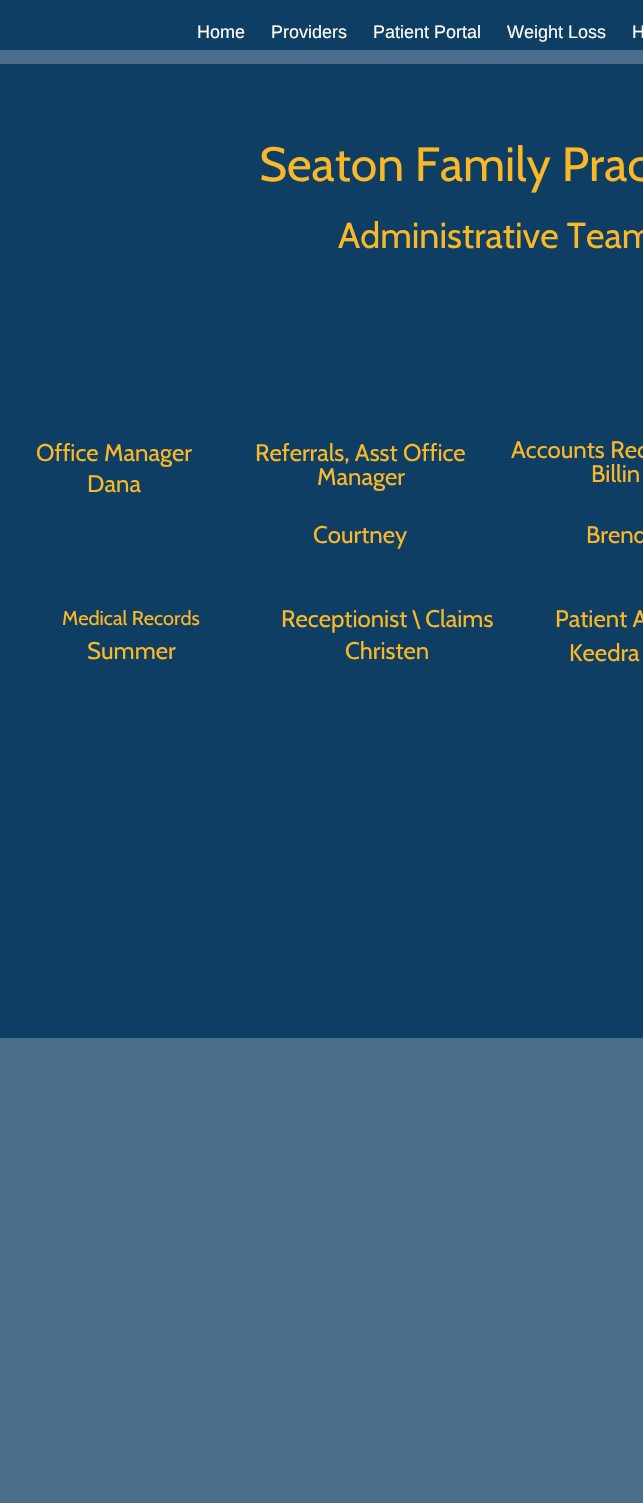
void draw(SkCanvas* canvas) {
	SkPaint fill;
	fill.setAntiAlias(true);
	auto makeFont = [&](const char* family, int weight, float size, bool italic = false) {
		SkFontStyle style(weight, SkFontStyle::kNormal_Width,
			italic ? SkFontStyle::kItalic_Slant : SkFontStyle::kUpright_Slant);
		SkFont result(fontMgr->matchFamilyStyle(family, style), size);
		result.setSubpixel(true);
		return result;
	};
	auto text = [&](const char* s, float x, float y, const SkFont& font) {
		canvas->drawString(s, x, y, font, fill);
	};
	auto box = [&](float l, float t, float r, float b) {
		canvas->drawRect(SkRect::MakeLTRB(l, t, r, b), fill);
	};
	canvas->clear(0xFF4A6E8A);
	fill.setColor(0xFF0E3E63);
	box(0, 0, 643, 50);
	box(0, 64, 643, 1038);
	auto font1 = makeFont("Liberation Sans", 400, 18);
	fill.setColor(0xFFFFFFFF);
	text("Home", 197, 38, font1);
	text("Providers", 271, 38, font1);
	text("Patient Portal", 373, 38, font1);
	text("Weight Loss", 507, 38, font1);
	text("H", 632, 38, font1);
	auto font2 = makeFont("Cabin", 400, 48);
	fill.setColor(0xFFFAB826);
	text("Seaton Family Prac", 259, 181, font2);
	auto font3 = makeFont("Cabin", 400, 36);
	text("Administrative Team", 338, 248, font3);
	auto font4 = makeFont("Cabin", 400, 24);
	text("Office Manager", 36, 461, font4);
	text("Dana", 87, 492, font4);
	text("Referrals, Asst Office", 255, 461, font4);
	text("Manager", 317, 485, font4);
	text("Courtney", 313, 543, font4);
	text("Accounts Rec", 511, 458, font4);
	text("Billin", 591, 482, font4);
	text("Brend", 586, 543, font4);
	auto font5 = makeFont("Cabin", 400, 20);
	text("Medical Records", 62, 625, font5);
	text("Receptionist \\ Claims", 281, 627, font4);
	text("Patient A", 555, 627, font4);
	text("Summer", 87, 659, font4);
	text("Christen", 345, 659, font4);
	text("Keedra", 569, 661, font4);
}
